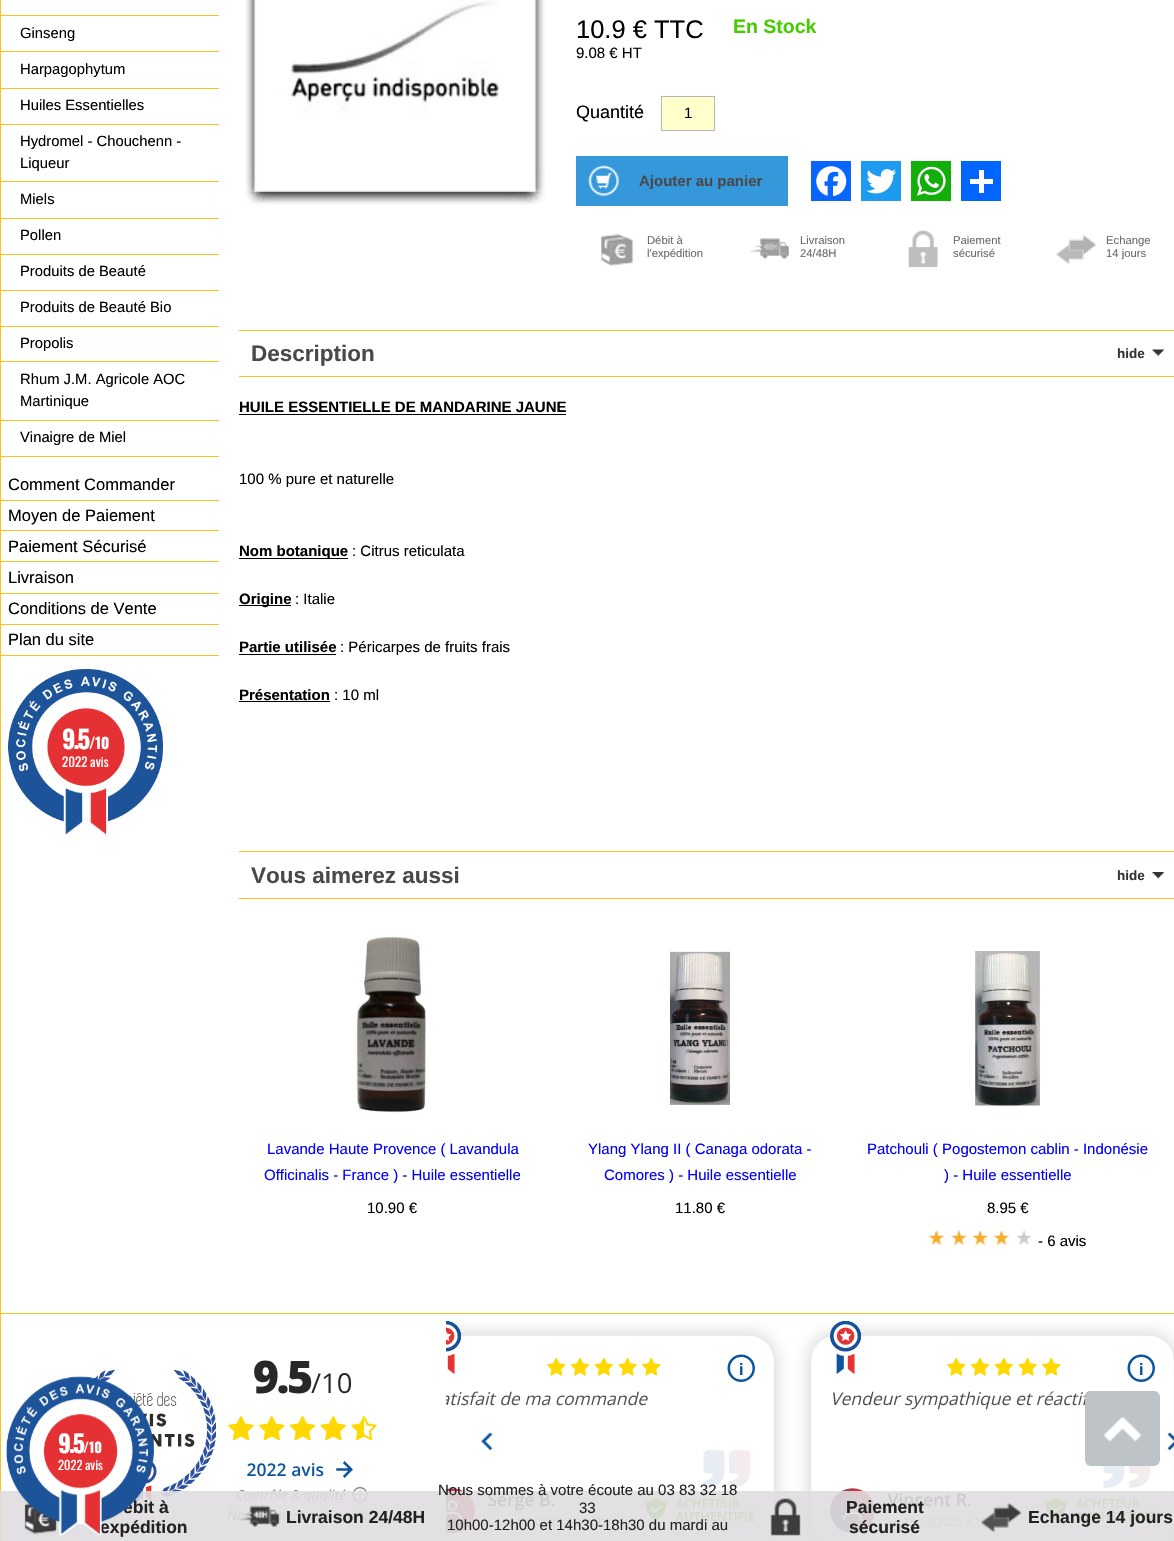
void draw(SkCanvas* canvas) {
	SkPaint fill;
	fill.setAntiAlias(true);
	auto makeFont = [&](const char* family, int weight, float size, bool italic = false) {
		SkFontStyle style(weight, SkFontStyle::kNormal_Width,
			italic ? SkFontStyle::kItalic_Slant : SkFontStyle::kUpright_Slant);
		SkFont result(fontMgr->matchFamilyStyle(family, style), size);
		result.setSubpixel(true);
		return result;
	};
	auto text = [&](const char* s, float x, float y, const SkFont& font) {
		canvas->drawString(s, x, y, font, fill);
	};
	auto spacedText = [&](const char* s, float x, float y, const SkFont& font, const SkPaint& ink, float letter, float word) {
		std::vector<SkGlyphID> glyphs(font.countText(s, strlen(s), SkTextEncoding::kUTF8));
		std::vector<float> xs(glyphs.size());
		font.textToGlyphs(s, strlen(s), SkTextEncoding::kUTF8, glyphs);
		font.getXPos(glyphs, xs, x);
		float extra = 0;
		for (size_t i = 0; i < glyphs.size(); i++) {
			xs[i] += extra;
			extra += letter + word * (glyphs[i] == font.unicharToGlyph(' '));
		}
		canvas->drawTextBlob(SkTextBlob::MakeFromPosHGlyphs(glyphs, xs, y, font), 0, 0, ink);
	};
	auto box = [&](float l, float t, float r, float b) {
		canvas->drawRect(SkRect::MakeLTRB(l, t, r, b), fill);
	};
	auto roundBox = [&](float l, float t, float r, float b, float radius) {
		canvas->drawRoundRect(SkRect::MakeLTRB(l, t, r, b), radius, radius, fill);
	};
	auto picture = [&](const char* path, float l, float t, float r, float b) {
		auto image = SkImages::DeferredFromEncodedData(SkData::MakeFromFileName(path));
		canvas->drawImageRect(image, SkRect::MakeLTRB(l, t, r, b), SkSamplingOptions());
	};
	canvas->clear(0xFFFFFFFF);
	fill.setStyle(SkPaint::kStroke_Style);
	fill.setStrokeWidth(1);
	fill.setColor(0xFFFAC120);
	canvas->drawRect(SkRect::MakeLTRB(0.5f, -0.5f, 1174.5f, 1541.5f), fill);
	fill.setStyle(SkPaint::kFill_Style);
	box(1, 15, 219, 16);
	box(1, 51, 219, 52);
	box(1, 88, 219, 89);
	box(1, 124, 219, 125);
	box(1, 181, 219, 182);
	box(1, 218, 219, 219);
	box(1, 254, 219, 255);
	box(1, 290, 219, 291);
	box(1, 326, 219, 327);
	box(1, 361, 219, 362);
	box(1, 420, 219, 421);
	box(1, 456, 219, 457);
	box(1, 500, 219, 501);
	box(1, 530, 219, 531);
	box(1, 561, 219, 562);
	box(1, 593, 219, 594);
	box(1, 624, 219, 625);
	box(1, 655, 219, 656);
	picture("image0.png", 8, 669, 163, 835);
	picture("image1.png", 245, 0, 546, 205);
	fill.setColor(0xFFFFFFCC);
	canvas->drawRect(SkRect::MakeLTRB(661.5f, 96.5f, 714.5f, 130.5f), fill);
	fill.setStyle(SkPaint::kStroke_Style);
	fill.setColor(0xFFB6B6B6);
	canvas->drawRect(SkRect::MakeLTRB(661.5f, 96.5f, 714.5f, 130.5f), fill);
	fill.setStyle(SkPaint::kFill_Style);
	fill.setColor(0xFF3498DB);
	box(576, 156, 788, 206);
	picture("image2.png", 588, 165, 619, 196);
	fill.setColor(0xFF0866FF);
	box(811, 161, 851, 201);
	picture("image3.png", 816, 166, 847, 197);
	fill.setColor(0xFF1D9BF0);
	box(861, 161, 901, 201);
	picture("image4.png", 866, 169, 897, 194);
	fill.setColor(0xFF12AF0A);
	box(911, 161, 951, 201);
	picture("image5.png", 916, 166, 946, 196);
	fill.setColor(0xFF0166FF);
	box(961, 161, 1001, 201);
	fill.setColor(0xFFFFFFFF);
	box(979, 170, 984, 193);
	box(970, 179, 993, 184);
	picture("image6.png", 601, 234, 634, 266);
	picture("image7.png", 750, 238, 789, 259);
	picture("image8.png", 908, 230, 938, 268);
	picture("image9.png", 1056, 235, 1097, 264);
	fill.setColor(0xFFFAC120);
	box(239, 330, 1174, 331);
	box(239, 376, 1174, 377);
	picture("image10.png", 1152, 349, 1164, 356);
	fill.setColor(0xFF000000);
	box(239, 414, 566, 415);
	box(239, 558, 348, 559);
	box(239, 605, 291, 606);
	box(239, 654, 336, 655);
	box(239, 701, 330, 702);
	fill.setColor(0xFFFAC120);
	box(239, 851, 1174, 852);
	box(239, 898, 1174, 899);
	picture("image11.png", 1152, 872, 1164, 879);
	picture("image12.png", 356, 935, 427, 1114);
	picture("image13.png", 666, 950, 732, 1106);
	picture("image14.png", 974, 947, 1040, 1108);
	picture("image15.png", 928, 1230, 944, 1246);
	picture("image16.png", 951, 1229, 967, 1246);
	picture("image17.png", 972, 1229, 988, 1246);
	picture("image15.png", 993, 1230, 1009, 1246);
	picture("image18.png", 1016, 1230, 1032, 1246);
	box(1, 1313, 1174, 1314);
	picture("image19.png", 93, 1321, 1174, 1541);
	fill.setColor(0xFFBDC3C7);
	roundBox(1085, 1391, 1160, 1466, 6);
	picture("image21.png", 1103, 1417, 1142, 1442);
	fill.setColor(0xE6DFDDDF);
	box(0, 1491, 1174, 1541);
	picture("image22.png", 24, 1503, 57, 1535);
	picture("image23.png", 240, 1505, 280, 1527);
	picture("image24.png", 770, 1498, 801, 1536);
	picture("image25.png", 980, 1502, 1022, 1533);
	auto font1 = makeFont("Liberation Sans", 400, 14.8f);
	fill.setColor(0xFF000000);
	text("Ginseng", 20, 38, font1);
	text("Harpagophytum", 20, 74, font1);
	text("Huiles Essentielles", 20, 110, font1);
	text("Hydromel - Chouchenn -", 20, 146, font1);
	text("Liqueur", 20, 168, font1);
	text("Miels", 20, 204, font1);
	text("Pollen", 20, 240, font1);
	text("Produits de Beauté", 20, 276, font1);
	text("Produits de Beauté Bio", 20, 312, font1);
	text("Propolis", 20, 348, font1);
	text("Rhum J.M. Agricole AOC", 20, 384, font1);
	text("Martinique", 20, 406, font1);
	text("Vinaigre de Miel", 20, 442, font1);
	auto font2 = makeFont("Liberation Sans", 400, 16.5f);
	text("Comment Commander", 8, 490, font2);
	text("Moyen de Paiement", 8, 521, font2);
	text("Paiement Sécurisé", 8, 552, font2);
	text("Livraison", 8, 583, font2);
	text("Conditions de Vente", 8, 614, font2);
	text("Plan du site", 8, 645, font2);
	auto font3 = makeFont("Oswald", 700, 25);
	fill.setColor(0xFFFFFFFF);
	spacedText("9.5", 62, 749, font3, fill, -2, 0);
	auto font4 = makeFont("Oswald", 700, 15);
	text("/10", 89, 749, font4);
	auto font5 = makeFont("Oswald", 400, 13);
	text("2022 avis", 62, 767, font5);
	auto font6 = makeFont("Liberation Sans", 400, 25.5f);
	fill.setColor(0xFF000000);
	text("10.9 € TTC", 576, 38, font6);
	auto font7 = makeFont("Liberation Sans", 400, 15);
	text("9.08 € HT", 576, 58, font7);
	auto font8 = makeFont("Liberation Sans", 700, 19.5f);
	fill.setColor(0xFF44CC00);
	text("En Stock", 733, 33, font8);
	auto font9 = makeFont("Liberation Sans", 400, 18);
	fill.setColor(0xFF000000);
	text("Quantité", 576, 118, font9);
	text("1", 684, 118, font7);
	auto font10 = makeFont("Liberation Sans", 700, 15);
	fill.setColor(0xFF494949);
	text("Ajouter au panier", 639, 186, font10);
	auto font11 = makeFont("Liberation Sans", 400, 11.25f);
	fill.setColor(0xFF696969);
	text("Débit à", 647, 244, font11);
	text("l'expédition", 647, 257, font11);
	text("Livraison", 800, 244, font11);
	text("24/48H", 800, 257, font11);
	text("Paiement", 953, 244, font11);
	text("sécurisé", 953, 257, font11);
	text("Echange", 1106, 244, font11);
	text("14 jours", 1106, 257, font11);
	auto font12 = makeFont("Liberation Sans", 700, 22.5f);
	fill.setColor(0xFF494949);
	text("Description", 251, 361, font12);
	auto font13 = makeFont("Liberation Sans", 700, 13.5f);
	fill.setColor(0xFF333333);
	text("hide", 1117, 358, font13);
	fill.setColor(0xFF000000);
	text("HUILE ESSENTIELLE DE MANDARINE JAUNE", 239, 412, font10);
	text("100 % pure et naturelle", 239, 484, font7);
	text("Nom botanique", 239, 556, font10);
	text(": Citrus reticulata", 352, 556, font7);
	text("Origine", 239, 604, font10);
	text(": Italie", 295, 604, font7);
	text("Partie utilisée", 239, 652, font10);
	text(": Péricarpes de fruits frais", 340, 652, font7);
	text("Présentation", 239, 700, font10);
	text(": 10 ml", 334, 700, font7);
	fill.setColor(0xFF494949);
	text("Vous aimerez aussi", 251, 883, font12);
	fill.setColor(0xFF333333);
	text("hide", 1117, 880, font13);
	fill.setColor(0xFF0000FF);
	text("Lavande Haute Provence ( Lavandula", 267, 1154, font7);
	text("Officinalis - France ) - Huile essentielle", 264, 1180, font7);
	fill.setColor(0xFF000000);
	text("10.90 €", 367, 1213, font7);
	fill.setColor(0xFF0000FF);
	text("Ylang Ylang II ( Canaga odorata -", 588, 1154, font7);
	text("Comores ) - Huile essentielle", 604, 1180, font7);
	fill.setColor(0xFF000000);
	text("11.80 €", 675, 1213, font7);
	fill.setColor(0xFF0000FF);
	text("Patchouli ( Pogostemon cablin - Indonésie", 867, 1154, font7);
	text(") - Huile essentielle", 944, 1180, font7);
	fill.setColor(0xFF000000);
	text("8.95 €", 987, 1213, font7);
	text("- 6 avis", 1038, 1246, font7);
	auto font14 = makeFont("Liberation Sans", 700, 17.5f);
	fill.setColor(0xFF222222);
	text("ébit à", 123, 1513, font14);
	text("expédition", 100, 1533, font14);
	picture("image20.png", 6, 1376, 154, 1536);
	auto font15 = makeFont("Oswald", 400, 12.5f);
	fill.setColor(0xFFFFFFFF);
	text("2022 avis", 58, 1470, font15);
	auto font16 = makeFont("Oswald", 700, 24);
	spacedText("9.5", 58, 1453, font16, fill, -2, 0);
	auto font17 = makeFont("Oswald", 700, 14);
	text("/10", 83, 1453, font17);
	fill.setColor(0xFF222222);
	text("Livraison 24/48H", 286, 1523, font14);
	text("Nous sommes à votre écoute au 03 83 32 18", 438, 1495, font7);
	text("33", 579, 1513, font7);
	text("10h00-12h00 et 14h30-18h30 du mardi au", 447, 1530, font7);
	text("Paiement", 846, 1513, font14);
	text("sécurisé", 849, 1533, font14);
	text("Echange 14 jours", 1028, 1523, font14);
}
